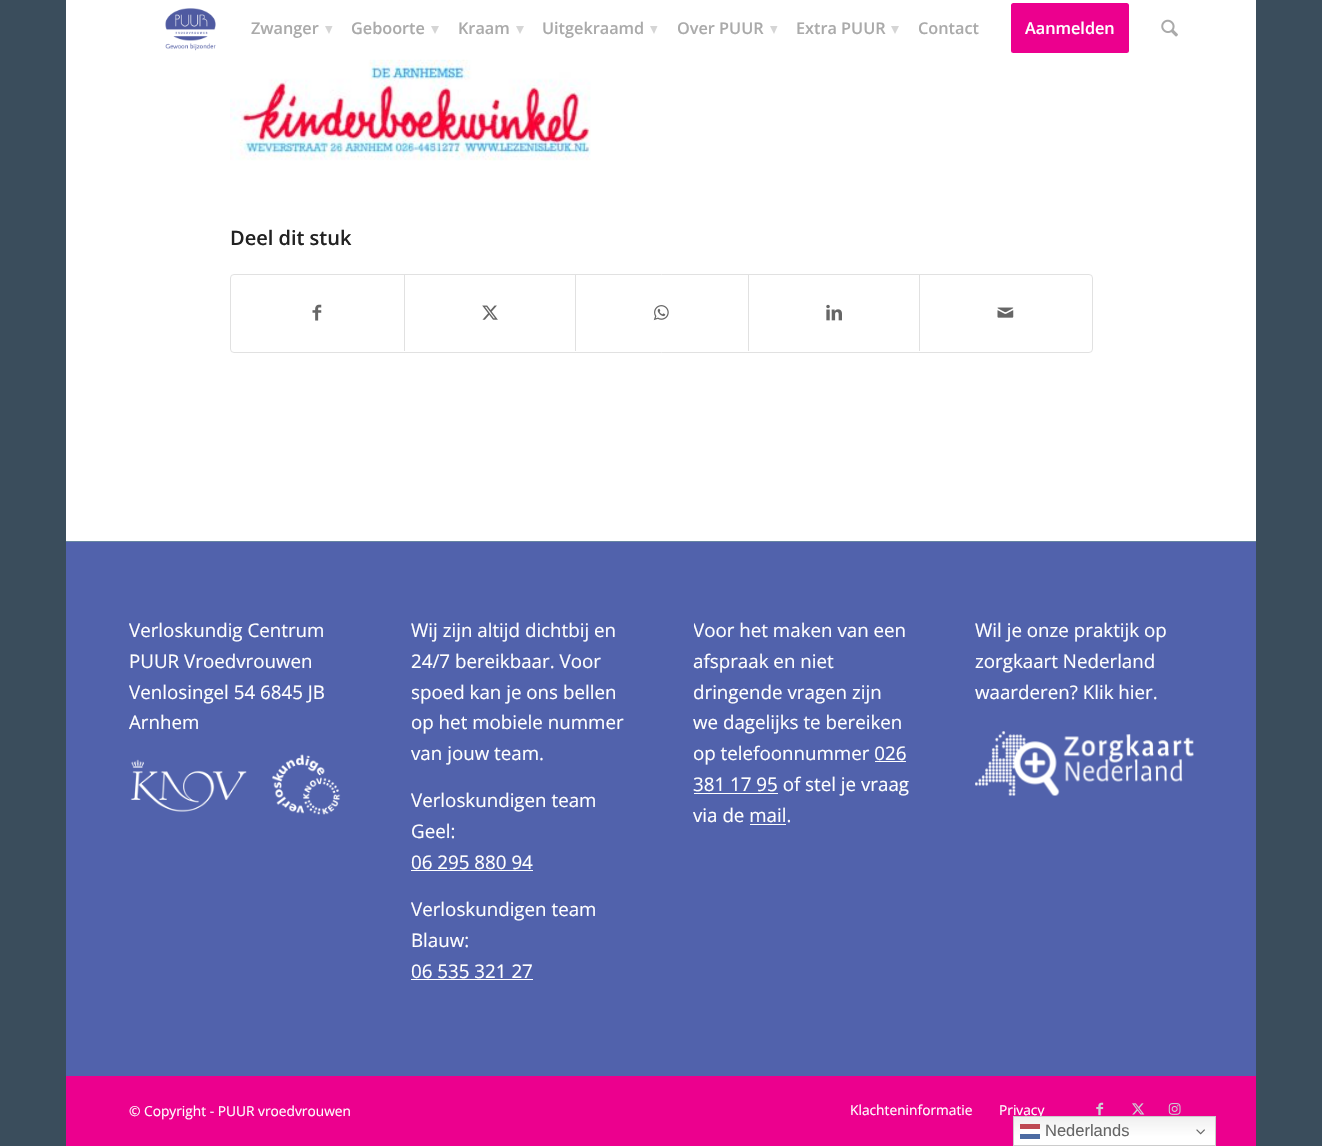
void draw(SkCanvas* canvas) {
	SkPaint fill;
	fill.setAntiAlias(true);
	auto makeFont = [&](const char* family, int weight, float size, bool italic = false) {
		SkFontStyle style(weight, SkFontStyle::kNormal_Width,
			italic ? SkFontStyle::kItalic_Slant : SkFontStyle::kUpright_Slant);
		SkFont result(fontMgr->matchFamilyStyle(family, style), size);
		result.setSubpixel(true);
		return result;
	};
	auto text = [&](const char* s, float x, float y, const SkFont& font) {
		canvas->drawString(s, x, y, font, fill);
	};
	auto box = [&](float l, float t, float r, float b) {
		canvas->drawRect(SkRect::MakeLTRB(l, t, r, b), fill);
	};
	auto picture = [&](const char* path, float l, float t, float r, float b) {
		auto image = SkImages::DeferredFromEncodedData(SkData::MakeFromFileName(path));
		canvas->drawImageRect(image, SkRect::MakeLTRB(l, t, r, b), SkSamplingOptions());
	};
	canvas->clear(0xFF3A4D5C);
	fill.setColor(0xFFFFFFFF);
	box(66, 0, 1256, 541);
	picture("image0.png", 165, 8, 216, 51);
	fill.setColor(0xFFD5D5D5);
	canvas->drawPath(SkPathBuilder().moveTo(325, 26).lineTo(332.5f, 26).lineTo(329, 34).close().detach(), fill);
	canvas->drawPath(SkPathBuilder().moveTo(431, 26).lineTo(439, 26).lineTo(435, 34).close().detach(), fill);
	canvas->drawPath(SkPathBuilder().moveTo(516, 26).lineTo(524, 26).lineTo(520, 34).close().detach(), fill);
	canvas->drawPath(SkPathBuilder().moveTo(650, 26).lineTo(657.5f, 26).lineTo(654, 34).close().detach(), fill);
	canvas->drawPath(SkPathBuilder().moveTo(770, 26).lineTo(777.5f, 26).lineTo(774, 34).close().detach(), fill);
	canvas->drawPath(SkPathBuilder().moveTo(891, 26).lineTo(899, 26).lineTo(895, 34).close().detach(), fill);
	fill.setColor(0xFFEC008E);
	canvas->drawRoundRect(SkRect::MakeLTRB(1012.5f, 4.5f, 1127.5f, 51.5f), 1, 1, fill);
	fill.setStyle(SkPaint::kStroke_Style);
	fill.setStrokeWidth(3);
	canvas->drawRoundRect(SkRect::MakeLTRB(1012.5f, 4.5f, 1127.5f, 51.5f), 1, 1, fill);
	picture("image1.png", 1161, 19, 1178, 37);
	picture("image2.png", 230, 59, 591, 161);
	fill.setStrokeWidth(1);
	fill.setColor(0xFFE1E1E1);
	canvas->drawRoundRect(SkRect::MakeLTRB(230.5f, 274.5f, 1092.5f, 352.5f), 3.5f, 3.5f, fill);
	picture("image3.png", 312, 304, 322, 321);
	fill.setStyle(SkPaint::kFill_Style);
	box(404, 275, 405, 351);
	picture("image4.png", 482, 305, 498, 320);
	box(575, 275, 576, 351);
	picture("image5.png", 653, 305, 669, 321);
	box(748, 275, 749, 351);
	picture("image6.png", 826, 304, 842, 321);
	box(919, 275, 920, 351);
	picture("image7.png", 997, 307, 1014, 318);
	fill.setColor(0xFF5162AC);
	box(66, 542, 1256, 1076);
	fill.setColor(0xFF6786A1);
	box(66, 541, 1256, 542);
	picture("image8.png", 130, 754, 341, 815);
	fill.setColor(0xFFFFFFFF);
	box(411, 870, 533, 871);
	box(411, 979, 533, 980);
	box(875, 761, 906, 762);
	box(694, 793, 778, 794);
	box(750, 824, 786, 825);
	picture("image9.png", 975, 731, 1194, 796);
	fill.setColor(0xFFEC008E);
	box(66, 1076, 1256, 1146);
	picture("image10.png", 1096, 1102, 1104, 1116);
	picture("image11.png", 1132, 1103, 1145, 1115);
	picture("image12.png", 1168, 1103, 1181, 1115);
	auto font1 = makeFont("Open Sans", 600, 16.25f);
	fill.setColor(0xFFAAAAAA);
	text("Zwanger", 251, 34, font1);
	text("Geboorte", 351, 34, font1);
	text("Kraam", 458, 34, font1);
	text("Uitgekraamd", 542, 34, font1);
	text("Over PUUR", 677, 34, font1);
	text("Extra PUUR", 796, 34, font1);
	text("Contact", 918, 34, font1);
	fill.setColor(0xFFFFFFFF);
	text("Aanmelden", 1025, 34, font1);
	auto font2 = makeFont("Open Sans", 600, 20);
	fill.setColor(0xFF222222);
	text("Deel dit stuk", 230, 245, font2);
	auto font3 = makeFont("Open Sans", 400, 18.75f);
	fill.setColor(0xFFFFFFFF);
	text("Verloskundig Centrum", 129, 637, font3);
	text("PUUR Vroedvrouwen", 129, 668, font3);
	text("Venlosingel 54 6845 JB", 129, 699, font3);
	text("Arnhem", 129, 729, font3);
	text("Wij zijn altijd dichtbij en", 411, 637, font3);
	text("24/7 bereikbaar. Voor", 411, 668, font3);
	text("spoed kan je ons bellen", 411, 699, font3);
	text("op het mobiele nummer", 411, 729, font3);
	text("van jouw team.", 411, 760, font3);
	text("Verloskundigen team", 411, 807, font3);
	text("Geel:", 411, 838, font3);
	text("06 295 880 94", 411, 869, font3);
	text("Verloskundigen team", 411, 916, font3);
	text("Blauw:", 411, 947, font3);
	text("06 535 321 27", 411, 978, font3);
	canvas->save();
	canvas->clipRect(SkRect::MakeLTRB(694, 599, 911, 846));
	text("Voor het maken van een", 693, 637, font3);
	canvas->restore();
	text("afspraak en niet", 693, 668, font3);
	text("dringende vragen zijn", 693, 699, font3);
	text("we dagelijks te bereiken", 693, 729, font3);
	text("op telefoonnummer 026", 693, 760, font3);
	text("381 17 95 of stel je vraag", 693, 791, font3);
	text("via de mail.", 693, 822, font3);
	text("Wil je onze praktijk op", 975, 637, font3);
	text("zorgkaart Nederland", 975, 668, font3);
	text("waarderen? Klik hier.", 975, 699, font3);
	auto font4 = makeFont("Open Sans", 400, 13.75f);
	text("© Copyright - PUUR vroedvrouwen", 129, 1116, font4);
	text("Klachteninformatie", 850, 1115, font4);
	text("Privacy", 999, 1115, font4);
	{
		const SkColor colors[] = {0xFFEFEFEF, 0xFFFFFFFF};
		const float stops[] = {0, 0.7f};
		const SkPoint ends[] = {{1114, 1116}, {1114, 1146}};
		fill.setShader(SkGradientShader::MakeLinear(ends, colors, stops, 2, SkTileMode::kClamp));
		fill.setAlpha(255);
	}
	box(1014, 1117, 1215, 1145);
	{
		const SkColor colors[] = {0xFFFCFCFC, 0xFFFFFFFF};
		const float stops[] = {0, 0.7f};
		const SkPoint ends[] = {{1114, 1116}, {1114, 1146}};
		fill.setShader(SkGradientShader::MakeLinear(ends, colors, stops, 2, SkTileMode::kClamp));
		fill.setAlpha(255);
	}
	box(1020, 1129, 1040, 1134);
	fill.setStyle(SkPaint::kStroke_Style);
	fill.setShader(nullptr);
	fill.setColor(0xFFCCCCCC);
	canvas->drawRect(SkRect::MakeLTRB(1013.5f, 1116.5f, 1215.5f, 1145.5f), fill);
	fill.setStyle(SkPaint::kFill_Style);
	fill.setColor(0xFFBE4953);
	box(1020, 1124, 1040, 1129);
	auto font5 = makeFont("Liberation Sans", 400, 16.5f);
	fill.setColor(0xFF666666);
	text("Nederlands", 1045, 1136, font5);
	picture("image13.png", 1196, 1129, 1205, 1135);
	fill.setColor(0xFF4D6BA2);
	box(1020, 1134, 1040, 1139);
}
